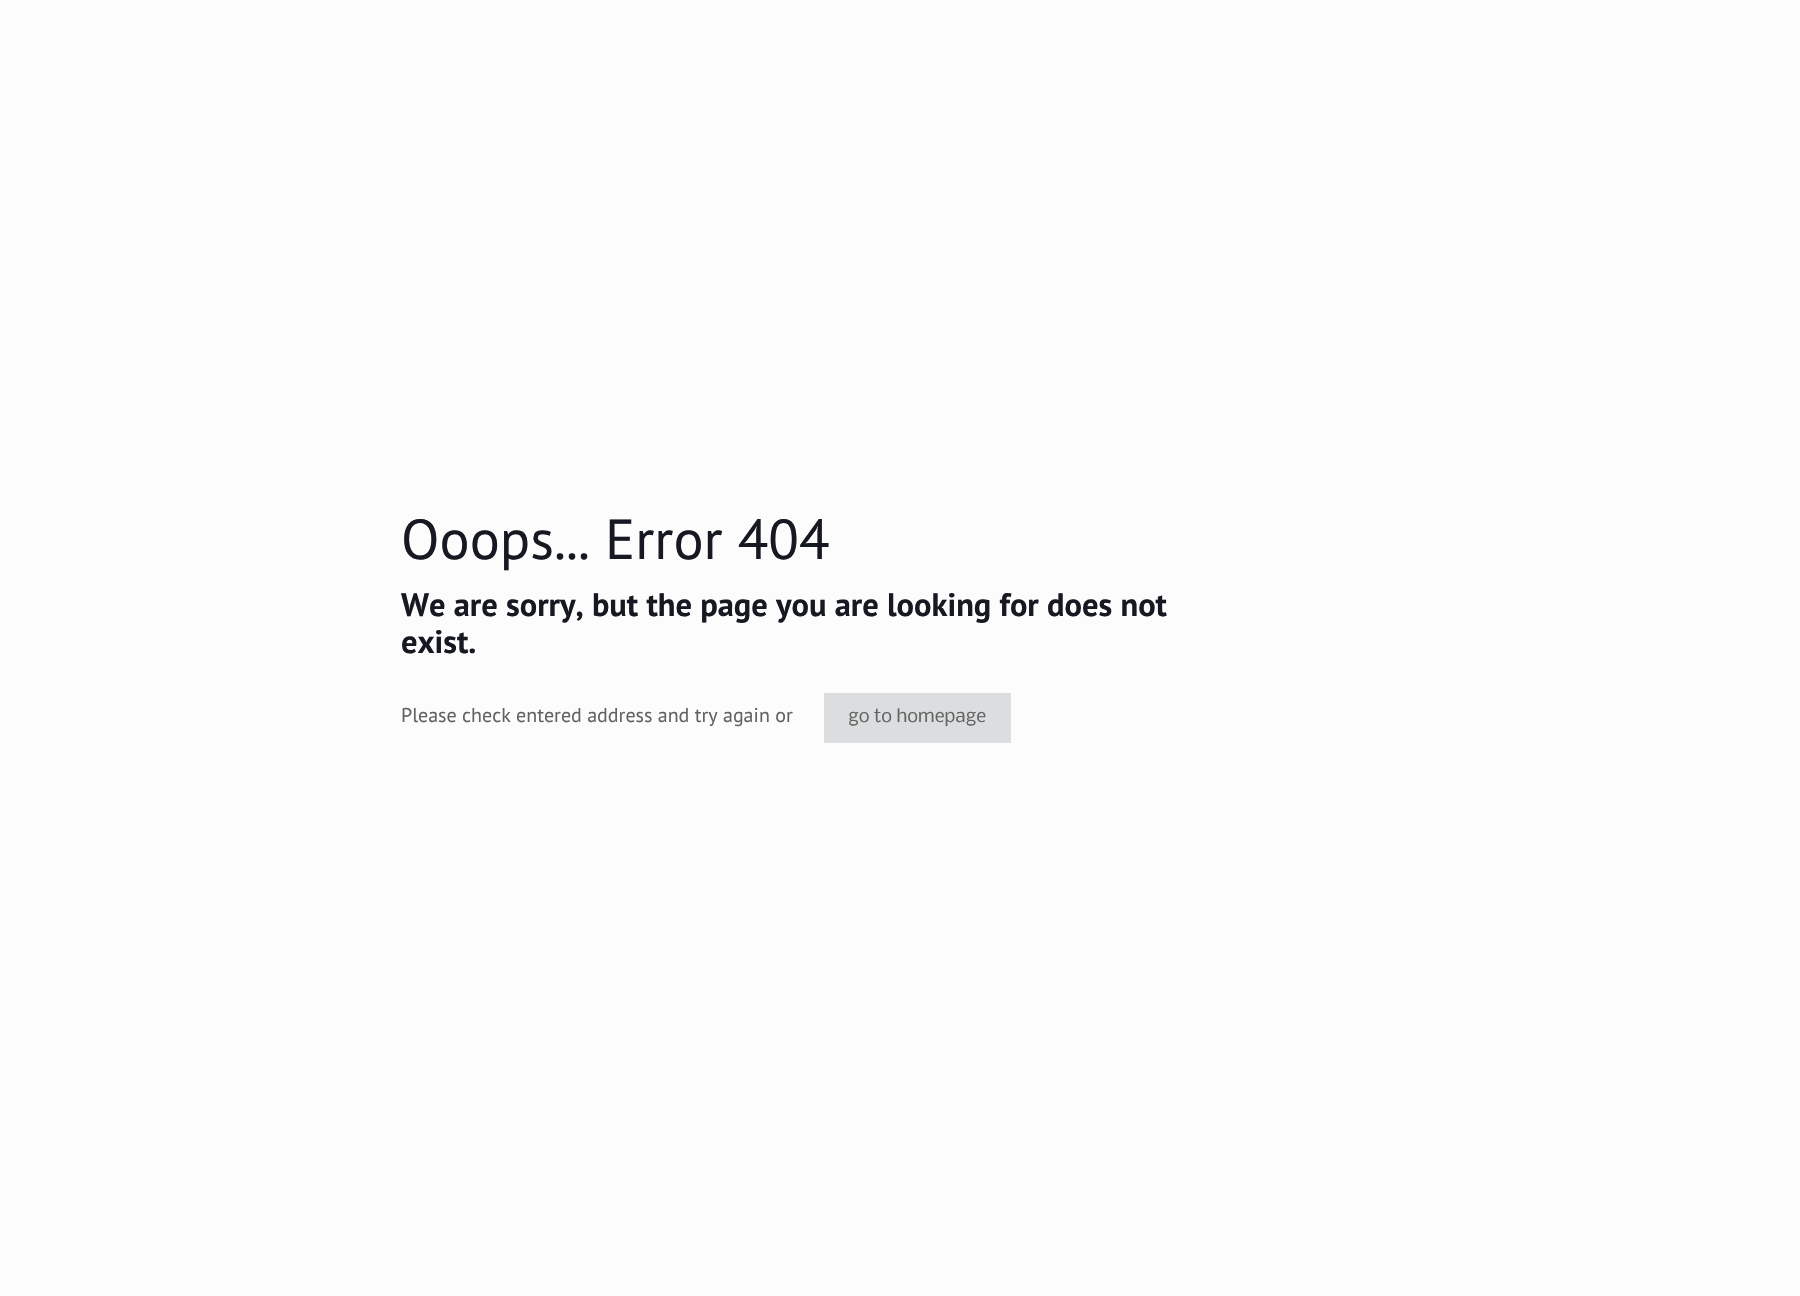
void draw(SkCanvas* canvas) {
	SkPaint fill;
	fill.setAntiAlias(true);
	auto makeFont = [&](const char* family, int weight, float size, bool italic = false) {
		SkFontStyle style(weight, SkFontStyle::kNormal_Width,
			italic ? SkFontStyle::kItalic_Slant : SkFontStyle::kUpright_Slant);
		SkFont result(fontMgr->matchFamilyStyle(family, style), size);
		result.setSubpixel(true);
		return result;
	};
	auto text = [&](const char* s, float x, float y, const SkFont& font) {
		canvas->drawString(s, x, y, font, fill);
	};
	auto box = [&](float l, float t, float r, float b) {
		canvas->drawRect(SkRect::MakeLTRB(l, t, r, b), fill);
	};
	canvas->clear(0xFFFCFCFC);
	fill.setColor(0xFFDBDDDF);
	box(824, 693, 1011, 743);
	auto font1 = makeFont("PT Sans", 400, 56.25f);
	fill.setColor(0xFF161922);
	text("Ooops... Error 404", 401, 559, font1);
	auto font2 = makeFont("PT Sans", 700, 32.5f);
	text("We are sorry, but the page you are looking for does not", 401, 616, font2);
	text("exist.", 401, 653, font2);
	auto font3 = makeFont("PT Sans", 400, 20);
	fill.setColor(0xFF626262);
	text("Please check entered address and try again or", 401, 722, font3);
	auto font4 = makeFont("Nobile", 400, 17.5f);
	text("go to homepage", 848, 722, font4);
}
